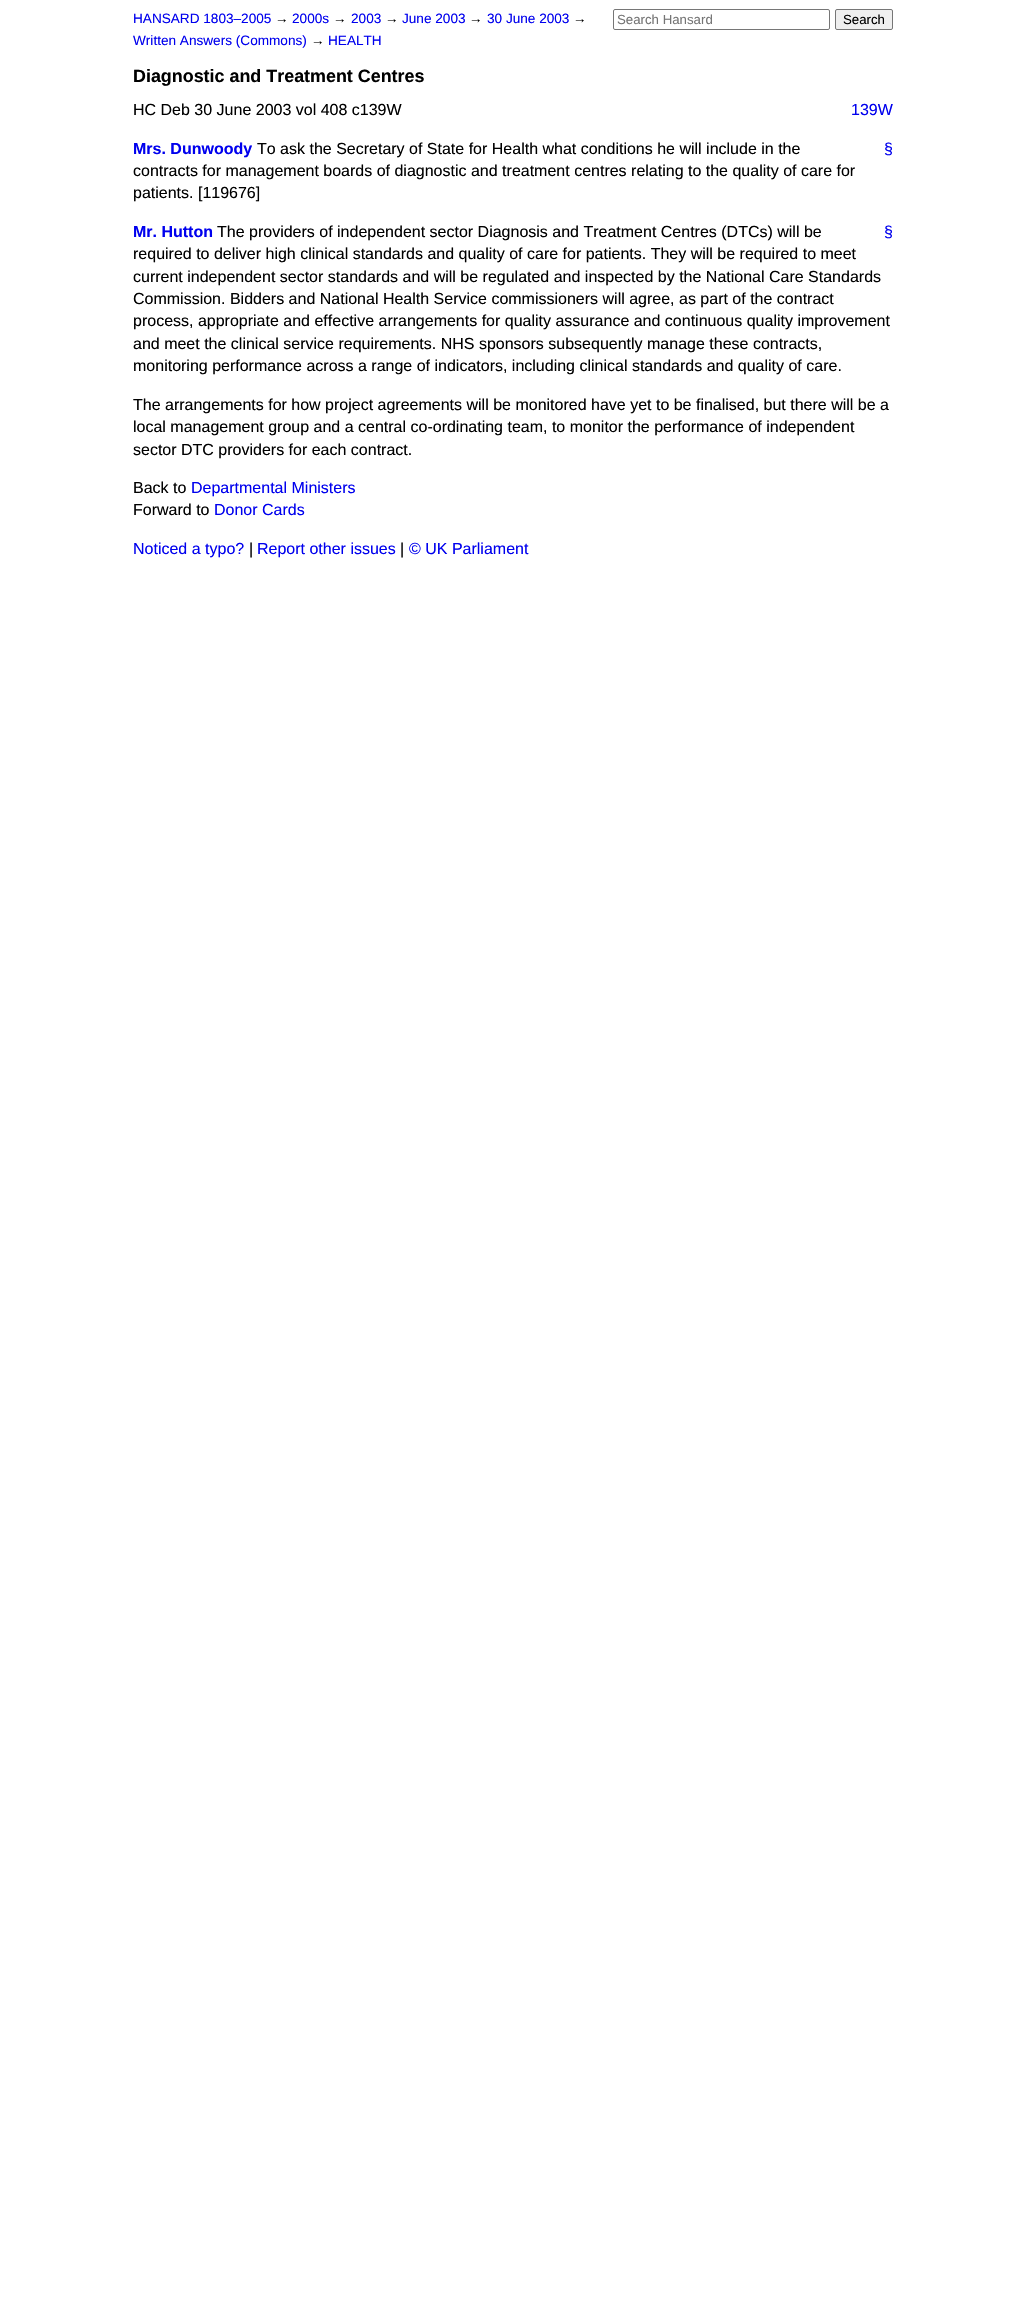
void draw(SkCanvas* canvas) {
	SkPaint fill;
	fill.setAntiAlias(true);
	auto makeFont = [&](const char* family, int weight, float size, bool italic = false) {
		SkFontStyle style(weight, SkFontStyle::kNormal_Width,
			italic ? SkFontStyle::kItalic_Slant : SkFontStyle::kUpright_Slant);
		SkFont result(fontMgr->matchFamilyStyle(family, style), size);
		result.setSubpixel(true);
		return result;
	};
	auto text = [&](const char* s, float x, float y, const SkFont& font) {
		canvas->drawString(s, x, y, font, fill);
	};
	canvas->clear(0xFFFFFFFF);
	fill.setStyle(SkPaint::kStroke_Style);
	fill.setStrokeWidth(1);
	fill.setColor(0xFF767676);
	canvas->drawRoundRect(SkRect::MakeLTRB(613.5f, 9.5f, 829.5f, 29.5f), 1.5f, 1.5f, fill);
	fill.setStyle(SkPaint::kFill_Style);
	fill.setColor(0xFFEFEFEF);
	canvas->drawRoundRect(SkRect::MakeLTRB(835.5f, 9.5f, 892.5f, 29.5f), 1.5f, 1.5f, fill);
	fill.setStyle(SkPaint::kStroke_Style);
	fill.setColor(0xFF767676);
	canvas->drawRoundRect(SkRect::MakeLTRB(835.5f, 9.5f, 892.5f, 29.5f), 1.5f, 1.5f, fill);
	auto font1 = makeFont("Liberation Sans", 400, 13.6f);
	fill.setStyle(SkPaint::kFill_Style);
	fill.setColor(0xFF0000EE);
	text("HANSARD 1803–2005", 133, 23, font1);
	fill.setColor(0xFF000000);
	text("→", 275, 23, font1);
	fill.setColor(0xFF0000EE);
	text("2000s", 292, 23, font1);
	fill.setColor(0xFF000000);
	text("→", 333, 23, font1);
	fill.setColor(0xFF0000EE);
	text("2003", 351, 23, font1);
	fill.setColor(0xFF000000);
	text("→", 385, 23, font1);
	fill.setColor(0xFF0000EE);
	text("June 2003", 402, 23, font1);
	fill.setColor(0xFF000000);
	text("→", 469, 23, font1);
	fill.setColor(0xFF0000EE);
	text("30 June 2003", 487, 23, font1);
	fill.setColor(0xFF000000);
	text("→", 573, 23, font1);
	fill.setColor(0xFF0000EE);
	text("Written Answers (Commons)", 133, 45, font1);
	fill.setColor(0xFF000000);
	text("→", 311, 45, font1);
	fill.setColor(0xFF0000EE);
	text("HEALTH", 328, 45, font1);
	auto font2 = makeFont("Liberation Sans", 400, 13.25f);
	fill.setColor(0xFF757575);
	text("Search Hansard", 617, 24, font2);
	fill.setColor(0xFF000000);
	text("Search", 843, 24, font2);
	auto font3 = makeFont("Liberation Sans", 700, 17.9f);
	text("Diagnostic and Treatment Centres", 133, 82, font3);
	auto font4 = makeFont("Liberation Sans", 400, 16);
	text("HC Deb 30 June 2003 vol 408 c139W", 133, 115, font4);
	fill.setColor(0xFF0000EE);
	text("139W", 851, 115, font4);
	auto font5 = makeFont("Liberation Sans", 700, 16);
	text("Mrs. Dunwoody", 133, 154, font5);
	fill.setColor(0xFF000000);
	text("To ask the Secretary of State for Health what conditions he will include in the", 257, 154, font4);
	fill.setColor(0xFF0000EE);
	text("§", 884, 154, font4);
	fill.setColor(0xFF000000);
	text("contracts for management boards of diagnostic and treatment centres relating to the quality of care for", 133, 176, font4);
	text("patients. [119676]", 133, 198, font4);
	fill.setColor(0xFF0000EE);
	text("Mr. Hutton", 133, 237, font5);
	fill.setColor(0xFF000000);
	text("The providers of independent sector Diagnosis and Treatment Centres (DTCs) will be", 217, 237, font4);
	fill.setColor(0xFF0000EE);
	text("§", 884, 237, font4);
	fill.setColor(0xFF000000);
	text("required to deliver high clinical standards and quality of care for patients. They will be required to meet", 133, 259, font4);
	text("current independent sector standards and will be regulated and inspected by the National Care Standards", 133, 282, font4);
	text("Commission. Bidders and National Health Service commissioners will agree, as part of the contract", 133, 304, font4);
	text("process, appropriate and effective arrangements for quality assurance and continuous quality improvement", 133, 326, font4);
	text("and meet the clinical service requirements. NHS sponsors subsequently manage these contracts,", 133, 349, font4);
	text("monitoring performance across a range of indicators, including clinical standards and quality of care.", 133, 371, font4);
	text("The arrangements for how project agreements will be monitored have yet to be finalised, but there will be a", 133, 410, font4);
	text("local management group and a central co-ordinating team, to monitor the performance of independent", 133, 432, font4);
	text("sector DTC providers for each contract.", 133, 455, font4);
	text("Back to", 133, 493, font4);
	fill.setColor(0xFF0000EE);
	text("Departmental Ministers", 191, 493, font4);
	fill.setColor(0xFF000000);
	text("Forward to", 133, 515, font4);
	fill.setColor(0xFF0000EE);
	text("Donor Cards", 214, 515, font4);
	text("Noticed a typo?", 133, 554, font4);
	fill.setColor(0xFF000000);
	text("|", 249, 554, font4);
	fill.setColor(0xFF0000EE);
	text("Report other issues", 257, 554, font4);
	fill.setColor(0xFF000000);
	text("|", 400, 554, font4);
	fill.setColor(0xFF0000EE);
	text("© UK Parliament", 409, 554, font4);
}
